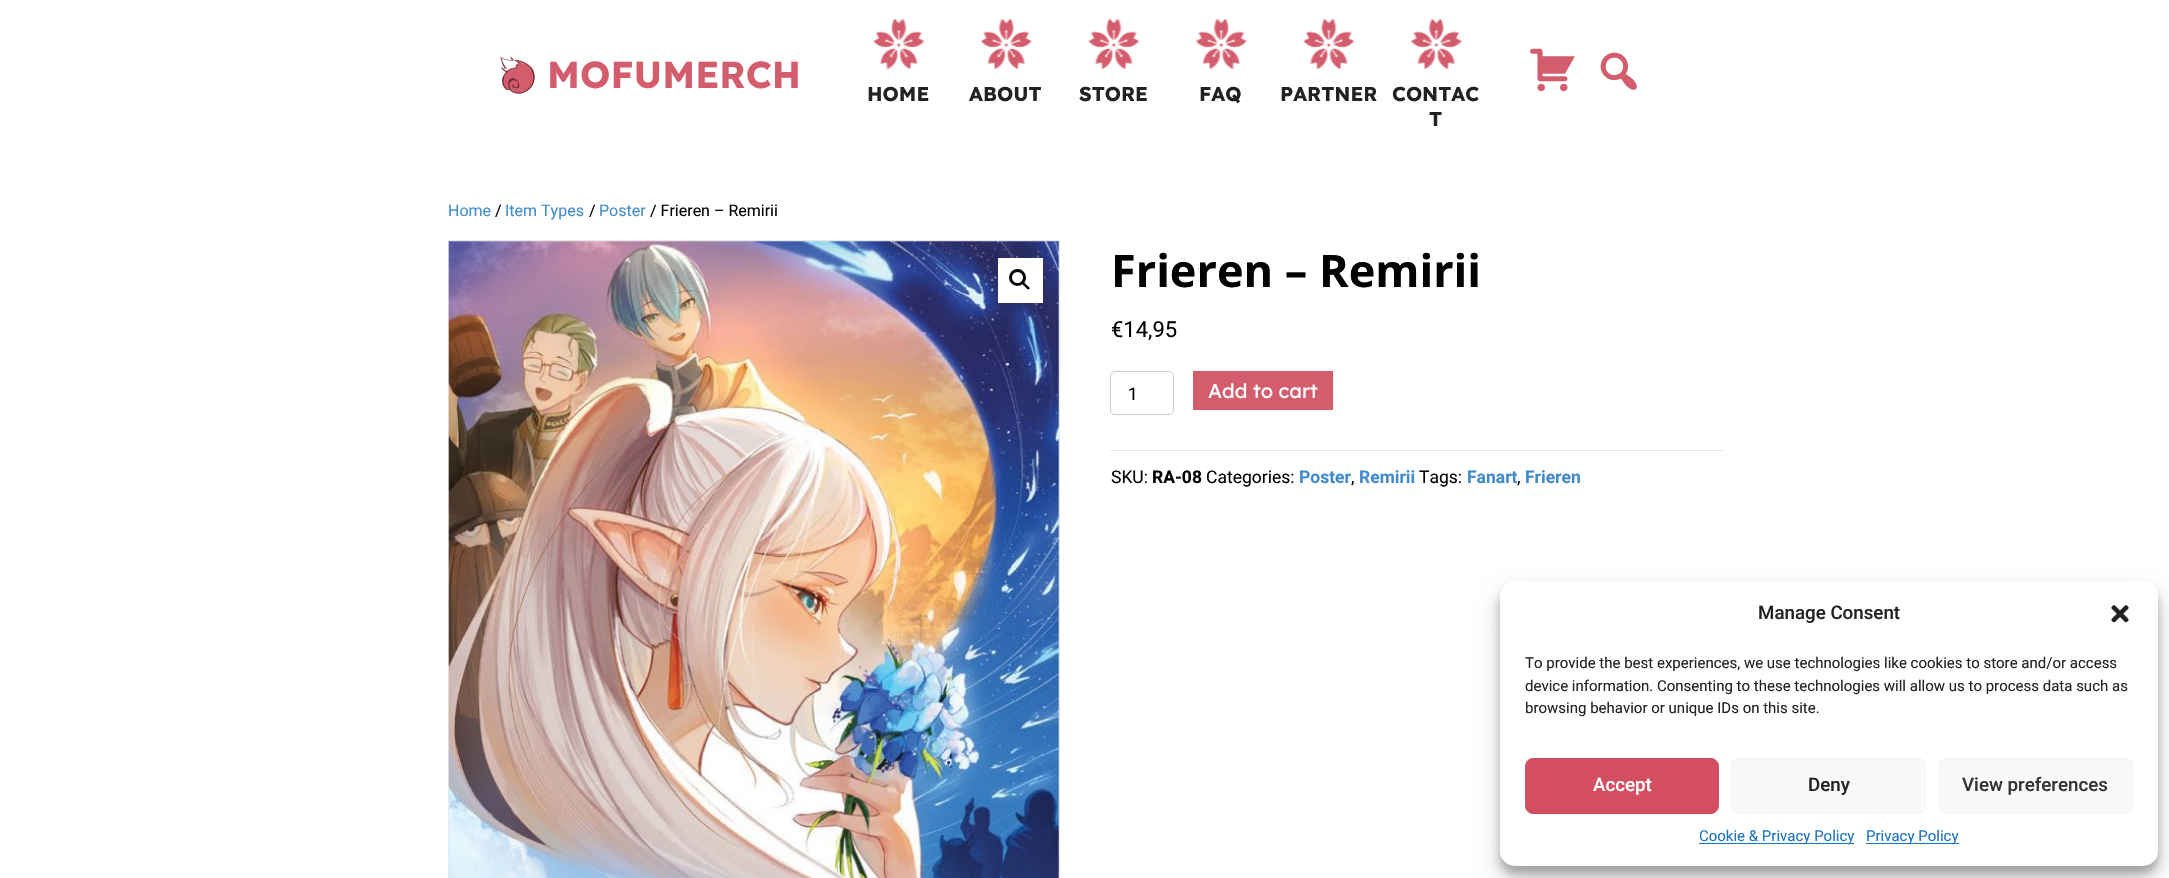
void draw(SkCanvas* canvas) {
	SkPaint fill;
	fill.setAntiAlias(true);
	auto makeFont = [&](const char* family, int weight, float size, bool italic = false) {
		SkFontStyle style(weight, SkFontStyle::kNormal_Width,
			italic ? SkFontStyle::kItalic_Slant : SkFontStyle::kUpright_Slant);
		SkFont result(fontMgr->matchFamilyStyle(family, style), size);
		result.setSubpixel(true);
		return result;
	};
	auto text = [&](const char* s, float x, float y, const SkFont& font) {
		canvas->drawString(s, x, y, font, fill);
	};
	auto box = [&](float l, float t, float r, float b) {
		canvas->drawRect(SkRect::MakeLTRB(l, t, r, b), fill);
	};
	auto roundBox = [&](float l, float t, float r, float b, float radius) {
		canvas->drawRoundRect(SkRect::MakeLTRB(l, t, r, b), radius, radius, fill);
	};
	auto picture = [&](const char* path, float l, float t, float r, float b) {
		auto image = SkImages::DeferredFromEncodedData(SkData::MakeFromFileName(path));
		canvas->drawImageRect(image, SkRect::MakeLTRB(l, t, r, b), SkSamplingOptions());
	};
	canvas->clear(0xFFFFFFFF);
	picture("image0.png", 500, 56, 535, 94);
	picture("image1.png", 1530, 48, 1575, 92);
	picture("image2.png", 1600, 52, 1637, 90);
	picture("image3.png", 873, 19, 925, 69);
	picture("image4.png", 980, 19, 1032, 69);
	picture("image3.png", 1088, 19, 1140, 69);
	picture("image5.png", 1195, 19, 1247, 69);
	picture("image6.png", 1303, 19, 1355, 69);
	picture("image7.png", 1410, 19, 1462, 69);
	fill.setStyle(SkPaint::kStroke_Style);
	fill.setStrokeWidth(1);
	fill.setColor(0xFFE6E6E6);
	canvas->drawRect(SkRect::MakeLTRB(448.5f, 240.5f, 1059.5f, 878.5f), fill);
	picture("image8.png", 448, 241, 1059, 878);
	fill.setStyle(SkPaint::kFill_Style);
	fill.setColor(0xFFFFFFFF);
	box(998, 258, 1043, 303);
	fill.setStyle(SkPaint::kStroke_Style);
	fill.setStrokeWidth(3);
	fill.setColor(0xFF000000);
	canvas->drawCircle(1017.5f, 277.5f, 7, fill);
	fill.setStyle(SkPaint::kFill_Style);
	canvas->drawPath(SkPathBuilder().moveTo(1022, 282).cubicTo(1023.5f, 280.5f, 1026, 284, 1026.5f, 285).cubicTo(1027.5f, 285.5f, 1030.5f, 288, 1029.5f, 289).cubicTo(1028, 290.5f, 1025.5f, 287.5f, 1025, 286.5f).cubicTo(1024, 286, 1021, 283.5f, 1022, 282).close().detach(), fill);
	fill.setStyle(SkPaint::kStroke_Style);
	fill.setStrokeWidth(1);
	fill.setColor(0xFFCCCCCC);
	canvas->drawRoundRect(SkRect::MakeLTRB(1110.5f, 371.5f, 1173.5f, 414.5f), 4.5f, 4.5f, fill);
	fill.setStyle(SkPaint::kFill_Style);
	fill.setColor(0xFFD45D6D);
	box(1193, 371, 1333, 410);
	fill.setColor(0xFFE6E6E6);
	box(1110, 450, 1723, 451);
	fill.setColor(0x3B000000);
	fill.setMaskFilter(SkMaskFilter::MakeBlur(kNormal_SkBlurStyle, 4));
	canvas->drawRoundRect(SkRect::MakeLTRB(1500, 589, 2158, 874), 15, 15, fill);
	fill.setMaskFilter(nullptr);
	fill.setColor(0x30000000);
	fill.setMaskFilter(SkMaskFilter::MakeBlur(kNormal_SkBlurStyle, 12.5f));
	canvas->drawRoundRect(SkRect::MakeLTRB(1500, 594, 2158, 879), 15, 15, fill);
	fill.setMaskFilter(nullptr);
	fill.setColor(0xFFFFFFFF);
	roundBox(1500, 581, 2158, 866, 15);
	picture("image9.png", 2111, 605, 2129, 623);
	fill.setColor(0xFFD34E60);
	canvas->drawRoundRect(SkRect::MakeLTRB(1525.5f, 758.5f, 1718.5f, 813.5f), 7.5f, 7.5f, fill);
	fill.setStyle(SkPaint::kStroke_Style);
	canvas->drawRoundRect(SkRect::MakeLTRB(1525.5f, 758.5f, 1718.5f, 813.5f), 7.5f, 7.5f, fill);
	fill.setStyle(SkPaint::kFill_Style);
	fill.setColor(0xFFF9F9F9);
	canvas->drawRoundRect(SkRect::MakeLTRB(1731.5f, 758.5f, 1925.5f, 813.5f), 7.5f, 7.5f, fill);
	fill.setStyle(SkPaint::kStroke_Style);
	fill.setColor(0xFFF2F2F2);
	canvas->drawRoundRect(SkRect::MakeLTRB(1731.5f, 758.5f, 1925.5f, 813.5f), 7.5f, 7.5f, fill);
	fill.setStyle(SkPaint::kFill_Style);
	fill.setColor(0xFFF9F9F9);
	canvas->drawRoundRect(SkRect::MakeLTRB(1939.5f, 758.5f, 2132.5f, 813.5f), 7.5f, 7.5f, fill);
	fill.setStyle(SkPaint::kStroke_Style);
	fill.setColor(0xFFF2F2F2);
	canvas->drawRoundRect(SkRect::MakeLTRB(1939.5f, 758.5f, 2132.5f, 813.5f), 7.5f, 7.5f, fill);
	fill.setStyle(SkPaint::kFill_Style);
	fill.setColor(0xFF1E73BE);
	box(1699, 843, 1854, 844);
	box(1866, 843, 1959, 844);
	auto font1 = makeFont("Lexend", 700, 37.5f);
	fill.setColor(0xFFD45D6D);
	text("MOFUMERCH", 547, 88, font1);
	auto font2 = makeFont("Lexend", 700, 20);
	fill.setColor(0xFF222222);
	text("HOME", 867, 101, font2);
	text("ABOUT", 969, 101, font2);
	text("STORE", 1079, 101, font2);
	text("FAQ", 1199, 101, font2);
	text("PARTNER", 1280, 101, font2);
	text("CONTAC", 1392, 101, font2);
	text("T", 1429, 126, font2);
	auto font3 = makeFont("Roboto", 400, 16);
	fill.setColor(0xFF428BCA);
	text("Home", 448, 216, font3);
	fill.setColor(0xFF020202);
	text("/", 495, 216, font3);
	fill.setColor(0xFF428BCA);
	text("Item Types", 505, 216, font3);
	fill.setColor(0xFF020202);
	text("/", 589, 216, font3);
	fill.setColor(0xFF428BCA);
	text("Poster", 599, 216, font3);
	fill.setColor(0xFF020202);
	text("/ Frieren – Remirii", 650, 216, font3);
	auto font4 = makeFont("Open Sans", 700, 45);
	text("Frieren – Remirii", 1111, 287, font4);
	auto font5 = makeFont("Roboto", 400, 22);
	text("€14,95", 1111, 337, font5);
	auto font6 = makeFont("Roboto", 400, 17.5f);
	text("1", 1128, 400, font6);
	auto font7 = makeFont("Lexend Deca", 400, 20);
	fill.setColor(0xFFFFFFFF);
	text("Add to cart", 1208, 398, font7);
	fill.setColor(0xFF020202);
	text("SKU:", 1111, 483, font6);
	auto font8 = makeFont("Roboto", 700, 17.5f);
	text("RA-08", 1152, 483, font8);
	text("Categories:", 1206, 483, font6);
	fill.setColor(0xFF428BCA);
	text("Poster", 1299, 483, font8);
	fill.setColor(0xFF020202);
	text(",", 1351, 483, font6);
	fill.setColor(0xFF428BCA);
	text("Remirii", 1359, 483, font8);
	fill.setColor(0xFF020202);
	text("Tags:", 1419, 483, font6);
	fill.setColor(0xFF428BCA);
	text("Fanart", 1467, 483, font8);
	fill.setColor(0xFF020202);
	text(",", 1517, 483, font6);
	fill.setColor(0xFF428BCA);
	text("Frieren", 1525, 483, font8);
	auto font9 = makeFont("Roboto", 500, 18.75f);
	fill.setColor(0xFF222222);
	text("Manage Consent", 1758, 619, font9);
	auto font10 = makeFont("Roboto", 400, 15);
	text("To provide the best experiences, we use technologies like cookies to store and/or access", 1525, 668, font10);
	text("device information. Consenting to these technologies will allow us to process data such as", 1525, 691, font10);
	text("browsing behavior or unique IDs on this site.", 1525, 713, font10);
	fill.setColor(0xFFFFFFFF);
	text("Accept", 1593, 791, font9);
	fill.setColor(0xFF222222);
	text("Deny", 1808, 791, font9);
	fill.setColor(0xFF333333);
	text("View preferences", 1962, 791, font9);
	fill.setColor(0xFF1E73BE);
	text("Cookie & Privacy Policy", 1699, 841, font10);
	text("Privacy Policy", 1866, 841, font10);
}
